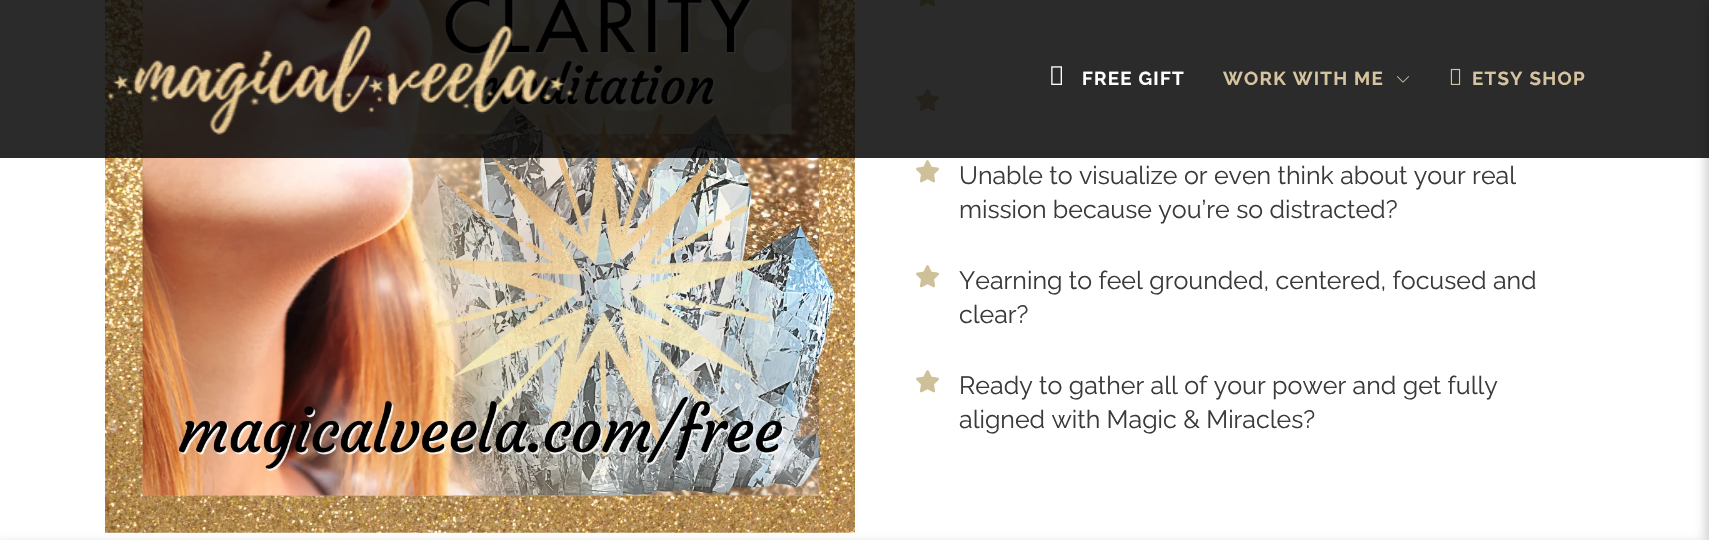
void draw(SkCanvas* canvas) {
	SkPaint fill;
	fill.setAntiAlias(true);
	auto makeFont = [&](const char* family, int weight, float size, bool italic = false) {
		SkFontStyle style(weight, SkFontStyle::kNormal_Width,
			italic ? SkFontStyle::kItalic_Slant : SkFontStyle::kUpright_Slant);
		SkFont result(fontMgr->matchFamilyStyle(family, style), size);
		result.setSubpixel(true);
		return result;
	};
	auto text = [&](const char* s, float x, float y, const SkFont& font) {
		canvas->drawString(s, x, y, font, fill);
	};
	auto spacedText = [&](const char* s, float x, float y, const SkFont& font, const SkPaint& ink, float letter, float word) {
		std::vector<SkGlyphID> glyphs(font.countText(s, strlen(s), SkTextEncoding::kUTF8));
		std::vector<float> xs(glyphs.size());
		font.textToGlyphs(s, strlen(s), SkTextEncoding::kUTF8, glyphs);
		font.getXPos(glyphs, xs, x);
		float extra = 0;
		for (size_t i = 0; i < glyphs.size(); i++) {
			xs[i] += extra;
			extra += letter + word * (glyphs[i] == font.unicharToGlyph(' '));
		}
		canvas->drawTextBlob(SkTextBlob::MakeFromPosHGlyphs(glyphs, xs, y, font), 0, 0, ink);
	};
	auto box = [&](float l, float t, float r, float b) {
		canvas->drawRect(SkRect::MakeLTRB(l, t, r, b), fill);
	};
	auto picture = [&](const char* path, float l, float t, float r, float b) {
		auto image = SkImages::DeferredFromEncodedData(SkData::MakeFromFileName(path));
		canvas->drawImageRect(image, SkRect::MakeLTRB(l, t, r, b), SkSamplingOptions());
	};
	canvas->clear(0xFFFFFFFF);
	picture("image4.png", 105, 0, 855, 533);
	picture("image5.png", 919, 0, 936, 6);
	picture("image6.png", 916, 88, 939, 111);
	fill.setColor(0xD4000000);
	box(0, 0, 1709, 158);
	picture("image0.png", 107, 24, 574, 135);
	picture("image1.png", 1051, 66, 1062, 85);
	picture("image2.png", 1397, 76, 1409, 83);
	picture("image3.png", 1450, 68, 1461, 85);
	picture("image7.png", 916, 160, 939, 183);
	picture("image7.png", 916, 265, 939, 288);
	picture("image7.png", 916, 370, 939, 393);
	fill.setColor(0x33000000);
	fill.setMaskFilter(SkMaskFilter::MakeBlur(kNormal_SkBlurStyle, 5.5f));
	canvas->drawRect(SkRect::MakeLTRB(1706, 4, 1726, 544), fill);
	fill.setMaskFilter(nullptr);
	fill.setMaskFilter(SkMaskFilter::MakeBlur(kNormal_SkBlurStyle, 5.5f));
	canvas->drawRect(SkRect::MakeLTRB(-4, 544, 1706, 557), fill);
	fill.setMaskFilter(nullptr);
	auto font1 = makeFont("Raleway", 700, 18.75f);
	fill.setColor(0xFFFFFFFF);
	spacedText("FREE GIFT", 1082, 85, font1, fill, 1.25f, 0);
	fill.setColor(0xFFD6C39F);
	spacedText("WORK WITH ME", 1223, 85, font1, fill, 1.25f, 0);
	spacedText("ETSY SHOP", 1472, 85, font1, fill, 1.25f, 0);
	auto font2 = makeFont("Raleway", 400, 25);
	fill.setColor(0xFF3A3A3A);
	text("Unable to visualize or even think about your real", 959, 184, font2);
	text("mission because you’re so distracted?", 959, 218, font2);
	text("Yearning to feel grounded, centered, focused and", 959, 289, font2);
	text("clear?", 959, 323, font2);
	text("Ready to gather all of your power and get fully", 959, 394, font2);
	text("aligned with Magic & Miracles?", 959, 428, font2);
}
